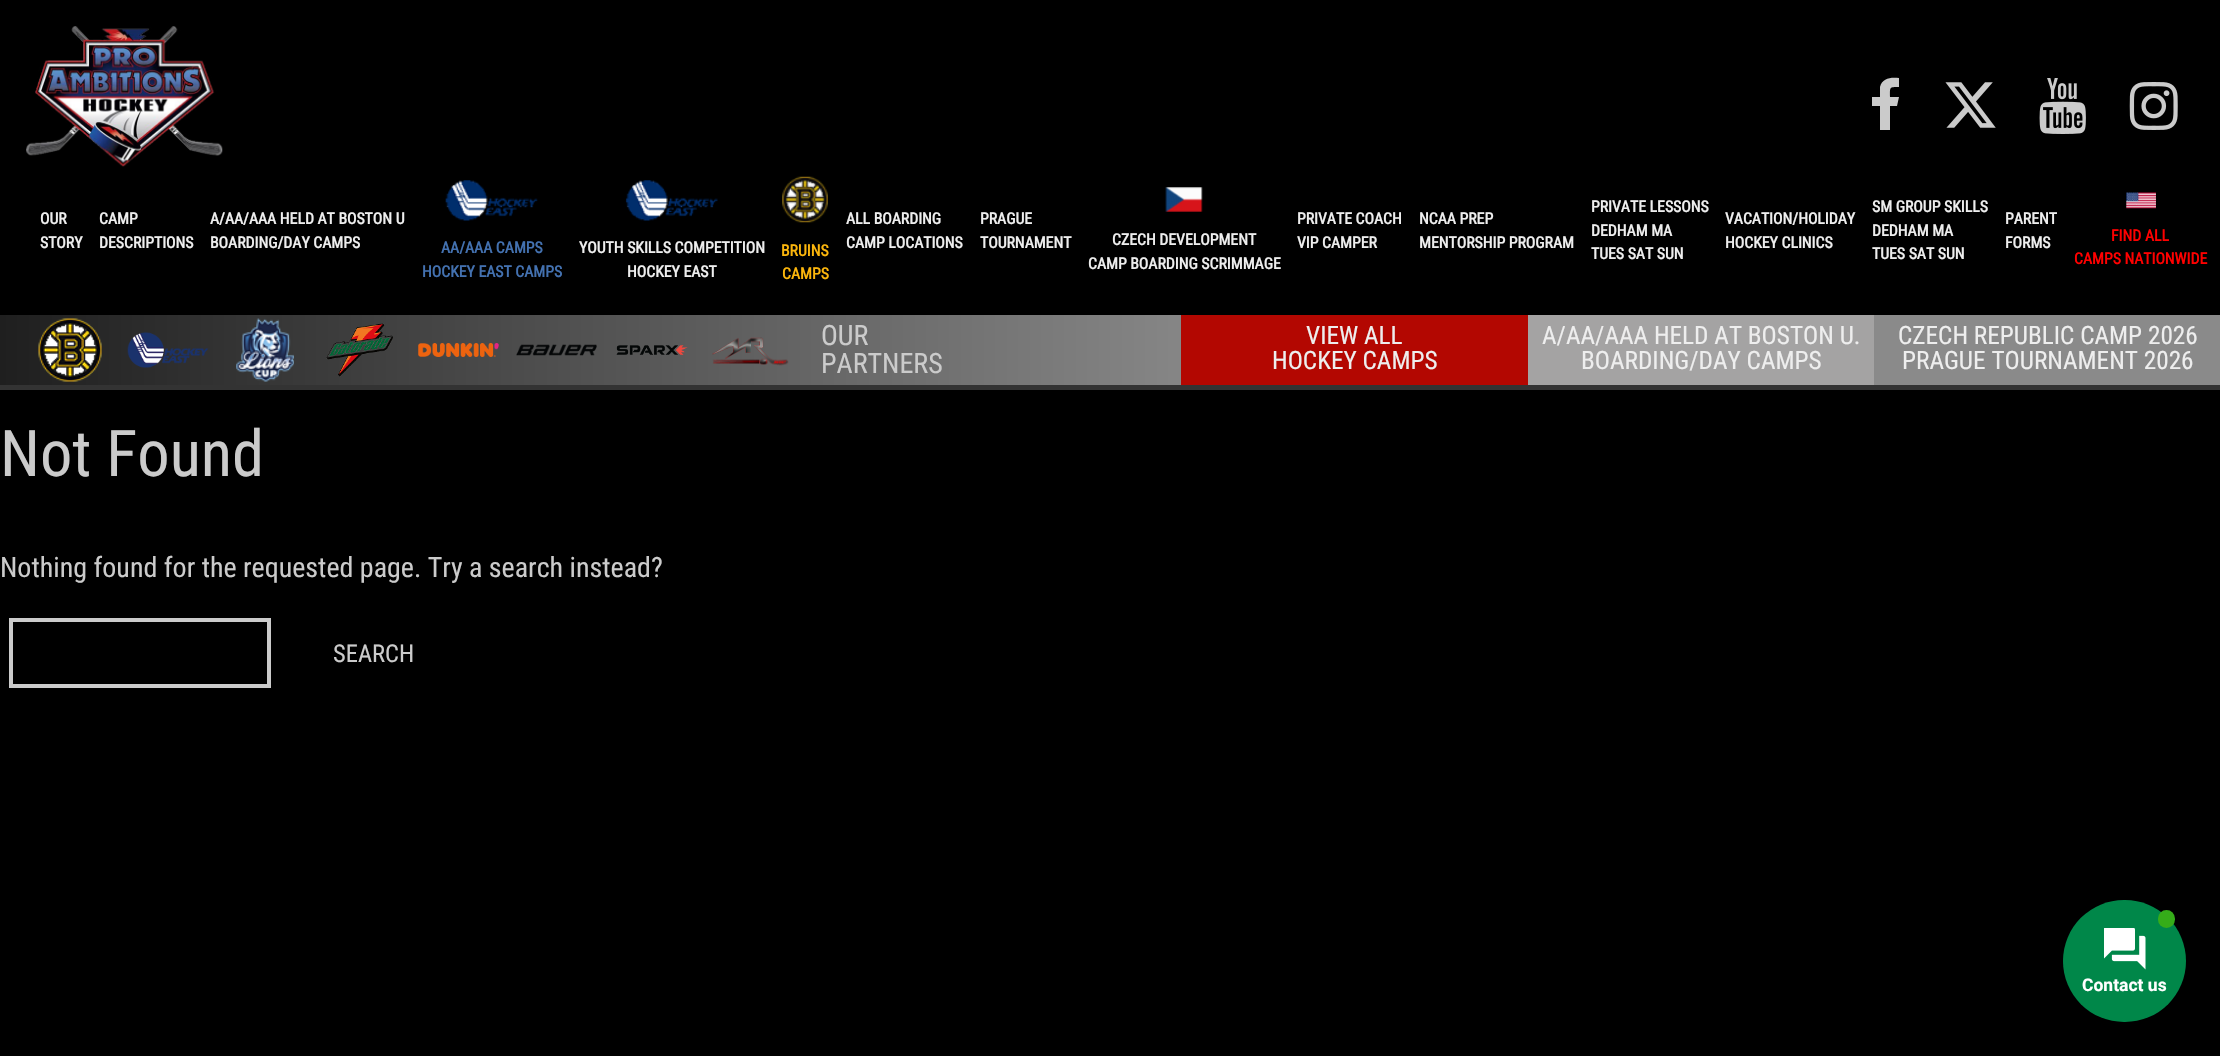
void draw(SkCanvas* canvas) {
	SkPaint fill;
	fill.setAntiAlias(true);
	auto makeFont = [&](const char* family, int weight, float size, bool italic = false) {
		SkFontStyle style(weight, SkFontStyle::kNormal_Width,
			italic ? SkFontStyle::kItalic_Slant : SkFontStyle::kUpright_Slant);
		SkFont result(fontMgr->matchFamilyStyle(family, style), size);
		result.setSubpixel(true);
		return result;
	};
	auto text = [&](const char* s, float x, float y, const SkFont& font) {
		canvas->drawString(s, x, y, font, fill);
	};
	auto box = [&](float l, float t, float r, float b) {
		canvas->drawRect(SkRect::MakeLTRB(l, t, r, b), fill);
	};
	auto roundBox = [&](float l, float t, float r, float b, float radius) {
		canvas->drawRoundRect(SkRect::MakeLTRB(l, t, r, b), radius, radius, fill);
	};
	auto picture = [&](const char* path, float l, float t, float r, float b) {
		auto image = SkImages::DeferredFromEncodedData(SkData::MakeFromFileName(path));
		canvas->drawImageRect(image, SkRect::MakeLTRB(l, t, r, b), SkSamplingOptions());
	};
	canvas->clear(0xFF000000);
	fill.setColor(0xFF333333);
	box(0, 385, 2220, 390);
	picture("image0.png", 26, 26, 223, 167);
	fill.setColor(0xFFCBCBCB);
	canvas->drawPath(SkPathBuilder().moveTo(1899, 78).lineTo(1899, 87).cubicTo(1889, 87, 1890, 87, 1890, 97).lineTo(1899, 97).lineTo(1897, 106).lineTo(1890, 106).lineTo(1890, 130).lineTo(1880, 130).lineTo(1880, 106).lineTo(1872, 106).lineTo(1872, 97).lineTo(1880, 97).lineTo(1880, 87).cubicTo(1882, 78, 1891, 77, 1899, 78).close().detach(), fill);
	picture("image1.png", 1945, 82, 1996, 128);
	picture("image2.png", 2039, 78, 2086, 134);
	picture("image3.png", 2129, 82, 2178, 130);
	picture("image4.png", 445, 180, 538, 221);
	picture("image5.png", 625, 180, 718, 221);
	picture("image6.png", 782, 176, 828, 223);
	picture("image7.png", 1165, 187, 1203, 212);
	picture("image8.png", 2126, 192, 2156, 209);
	{
		const SkColor colors[] = {0xFF1F1F1F, 0xFFE0E0E0};
		const float stops[] = {0, 1};
		const SkPoint ends[] = {{0, 350}, {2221, 350}};
		fill.setShader(SkGradientShader::MakeLinear(ends, colors, stops, 2, SkTileMode::kClamp));
		fill.setAlpha(255);
	}
	box(0, 315, 1181, 385);
	picture("image9.png", 38, 318, 102, 382);
	picture("image10.png", 127, 332, 209, 368);
	picture("image11.png", 236, 318, 294, 382);
	picture("image12.png", 326, 323, 393, 377);
	picture("image13.png", 418, 343, 499, 357);
	picture("image14.png", 516, 344, 597, 356);
	picture("image15.png", 616, 345, 688, 355);
	picture("image16.png", 712, 337, 789, 366);
	fill.setShader(nullptr);
	fill.setColor(0xFFB30701);
	box(1181, 315, 1528, 385);
	fill.setColor(0xFFA4A3A3);
	box(1528, 315, 1874, 385);
	fill.setColor(0xFF8A8A8A);
	box(1874, 315, 2220, 385);
	fill.setStyle(SkPaint::kStroke_Style);
	fill.setStrokeWidth(4);
	fill.setColor(0xFFCBCBCB);
	canvas->drawRect(SkRect::MakeLTRB(11, 620, 269, 686), fill);
	fill.setStyle(SkPaint::kFill_Style);
	fill.setColor(0xFF008749);
	roundBox(2063, 900, 2186, 1022, 61);
	fill.setColor(0xFF35AC19);
	roundBox(2158, 910, 2175, 928, 8.5f);
	picture("image17.png", 2104, 928, 2146, 970);
	auto font1 = makeFont("Roboto Condensed", 700, 15.75f);
	fill.setColor(0xFFEEEEEE);
	text("OUR", 40, 224, font1);
	text("STORY", 40, 248, font1);
	text("CAMP", 99, 224, font1);
	text("DESCRIPTIONS", 99, 248, font1);
	text("A/AA/AAA HELD AT BOSTON U", 210, 224, font1);
	text("BOARDING/DAY CAMPS", 210, 248, font1);
	fill.setColor(0xFF4371B0);
	text("AA/AAA CAMPS", 441, 253, font1);
	text("HOCKEY EAST CAMPS", 422, 277, font1);
	fill.setColor(0xFFEEEEEE);
	text("YOUTH SKILLS COMPETITION", 579, 253, font1);
	text("HOCKEY EAST", 627, 277, font1);
	fill.setColor(0xFFFCB60C);
	text("BRUINS", 781, 256, font1);
	text("CAMPS", 782, 279, font1);
	fill.setColor(0xFFEEEEEE);
	text("ALL BOARDING", 846, 224, font1);
	text("CAMP LOCATIONS", 846, 248, font1);
	text("PRAGUE", 980, 224, font1);
	text("TOURNAMENT", 980, 248, font1);
	text("CZECH DEVELOPMENT", 1112, 245, font1);
	text("CAMP BOARDING SCRIMMAGE", 1088, 269, font1);
	text("PRIVATE COACH", 1297, 224, font1);
	text("VIP CAMPER", 1297, 248, font1);
	text("NCAA PREP", 1419, 224, font1);
	text("MENTORSHIP PROGRAM", 1419, 248, font1);
	text("PRIVATE LESSONS", 1591, 212, font1);
	text("DEDHAM MA", 1591, 236, font1);
	text("TUES SAT SUN", 1591, 259, font1);
	text("VACATION/HOLIDAY", 1725, 224, font1);
	text("HOCKEY CLINICS", 1725, 248, font1);
	text("SM GROUP SKILLS", 1872, 212, font1);
	text("DEDHAM MA", 1872, 236, font1);
	text("TUES SAT SUN", 1872, 259, font1);
	text("PARENT", 2005, 224, font1);
	text("FORMS", 2005, 248, font1);
	fill.setColor(0xFFFF0000);
	text("FIND ALL", 2111, 241, font1);
	text("CAMPS NATIONWIDE", 2074, 264, font1);
	auto font2 = makeFont("Roboto Condensed", 400, 28);
	fill.setColor(0xFFCBCBCB);
	text("OUR", 821, 345, font2);
	text("PARTNERS", 821, 373, font2);
	auto font3 = makeFont("Roboto Condensed", 400, 25.25f);
	fill.setColor(0xFFEEEEEE);
	text("VIEW ALL", 1306, 344, font3);
	text("HOCKEY CAMPS", 1272, 369, font3);
	text("A/AA/AAA HELD AT BOSTON U.", 1542, 344, font3);
	text("BOARDING/DAY CAMPS", 1581, 369, font3);
	text("CZECH REPUBLIC CAMP 2026", 1898, 344, font3);
	text("PRAGUE TOURNAMENT 2026", 1902, 369, font3);
	auto font4 = makeFont("Roboto Condensed", 400, 64.5f);
	fill.setColor(0xFFCBCBCB);
	text("Not Found", 0, 476, font4);
	text("Nothing found for the requested page. Try a search instead?", 0, 577, font2);
	auto font5 = makeFont("Roboto Condensed", 400, 24.5f);
	text("SEARCH", 333, 662, font5);
	auto font6 = makeFont("Roboto", 700, 17.5f);
	fill.setColor(0xFFFFFFFF);
	text("Contact us", 2082, 991, font6);
}
